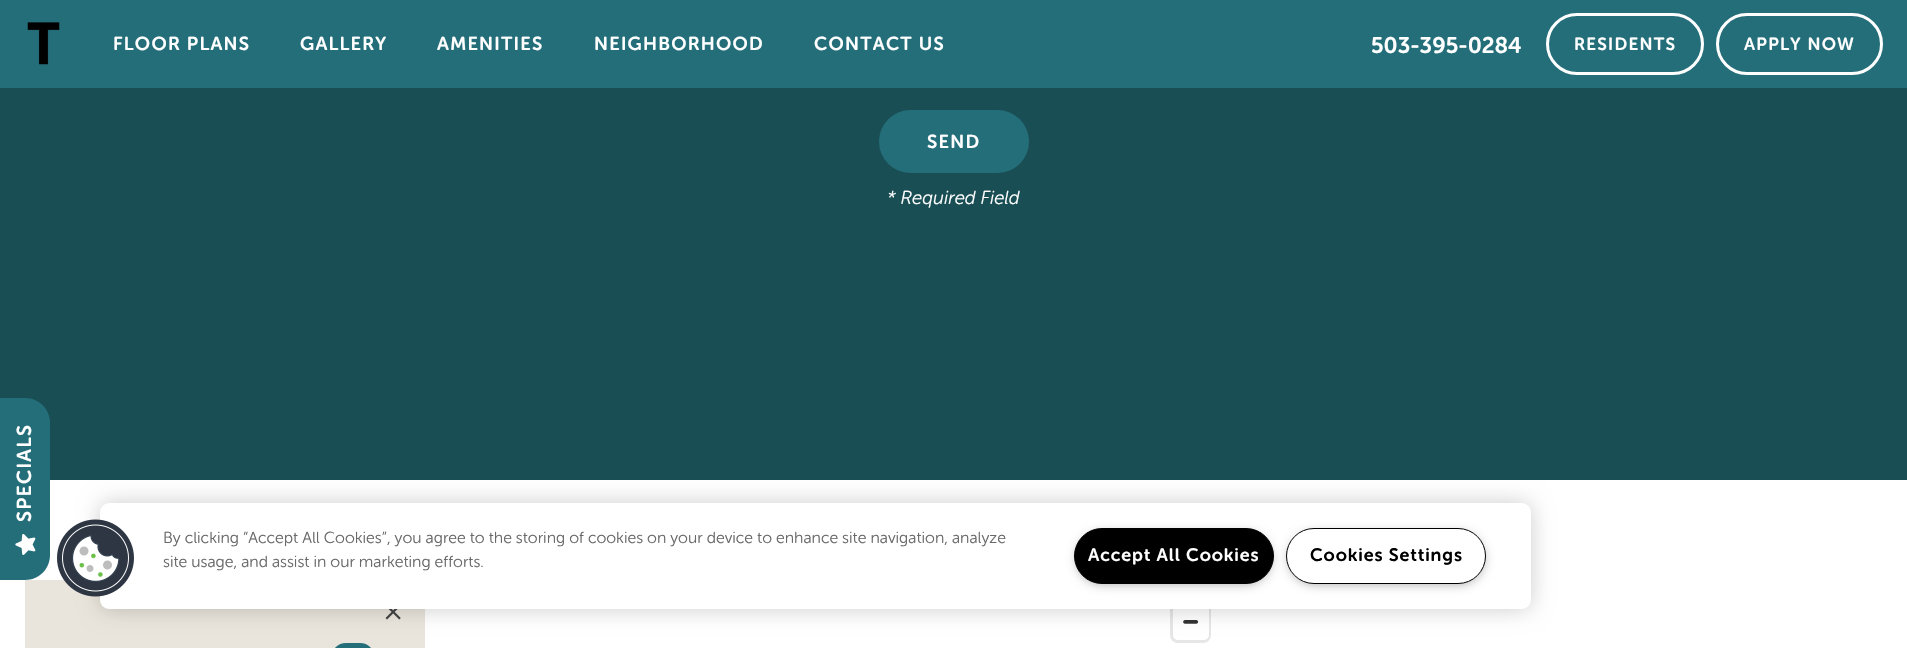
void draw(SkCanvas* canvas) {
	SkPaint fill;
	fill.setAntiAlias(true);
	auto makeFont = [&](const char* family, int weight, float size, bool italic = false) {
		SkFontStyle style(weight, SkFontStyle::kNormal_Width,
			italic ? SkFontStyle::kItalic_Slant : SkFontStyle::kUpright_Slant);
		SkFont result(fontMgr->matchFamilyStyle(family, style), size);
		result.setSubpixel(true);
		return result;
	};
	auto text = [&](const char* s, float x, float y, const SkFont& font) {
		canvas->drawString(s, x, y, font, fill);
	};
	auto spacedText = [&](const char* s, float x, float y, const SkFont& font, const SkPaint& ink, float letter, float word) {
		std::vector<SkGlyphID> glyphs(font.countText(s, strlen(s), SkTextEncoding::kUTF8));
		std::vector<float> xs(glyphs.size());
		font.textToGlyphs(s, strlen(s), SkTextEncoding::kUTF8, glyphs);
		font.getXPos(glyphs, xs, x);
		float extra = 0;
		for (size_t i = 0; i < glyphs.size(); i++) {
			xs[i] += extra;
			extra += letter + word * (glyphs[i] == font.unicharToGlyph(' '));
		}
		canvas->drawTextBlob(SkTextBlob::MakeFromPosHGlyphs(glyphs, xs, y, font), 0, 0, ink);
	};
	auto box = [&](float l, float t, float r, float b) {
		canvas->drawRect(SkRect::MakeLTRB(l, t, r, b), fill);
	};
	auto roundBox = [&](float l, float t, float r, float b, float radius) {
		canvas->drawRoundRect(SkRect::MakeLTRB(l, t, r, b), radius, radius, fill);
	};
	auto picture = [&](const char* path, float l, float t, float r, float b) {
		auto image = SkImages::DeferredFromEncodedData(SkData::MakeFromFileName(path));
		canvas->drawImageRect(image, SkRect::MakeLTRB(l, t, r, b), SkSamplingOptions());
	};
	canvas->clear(0xFF194E54);
	fill.setColor(0xFF246E7A);
	box(0, 0, 1907, 88);
	picture("image0.png", 27, 22, 60, 65);
	fill.setStyle(SkPaint::kStroke_Style);
	fill.setStrokeWidth(3);
	fill.setColor(0xFFFFFFFF);
	canvas->drawRoundRect(SkRect::MakeLTRB(1547.5f, 14.5f, 1702.5f, 73.5f), 29.5f, 29.5f, fill);
	canvas->drawRoundRect(SkRect::MakeLTRB(1717.5f, 14.5f, 1881.5f, 73.5f), 29.5f, 29.5f, fill);
	fill.setStyle(SkPaint::kFill_Style);
	fill.setColor(0xFF246E7A);
	roundBox(879, 110, 1029, 173, 31.5f);
	fill.setColor(0xFFFFFFFF);
	box(0, 480, 1907, 648);
	fill.setColor(0xFFE9E5DC);
	box(25, 580, 425, 648);
	picture("image1.png", 385, 609, 401, 620);
	fill.setColor(0xFF246E7A);
	canvas->drawRoundRect(SkRect::MakeLTRB(332.5f, 644.5f, 373.5f, 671.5f), 20, 20, fill);
	fill.setStyle(SkPaint::kStroke_Style);
	canvas->drawRoundRect(SkRect::MakeLTRB(332.5f, 644.5f, 373.5f, 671.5f), 20, 20, fill);
	fill.setColor(0xFFE6E6E6);
	canvas->drawRoundRect(SkRect::MakeLTRB(1171.5f, 566.5f, 1209.5f, 641.5f), 6.5f, 6.5f, fill);
	fill.setStyle(SkPaint::kFill_Style);
	fill.setColor(0xFFFFFFFF);
	roundBox(1173, 568, 1209, 640, 5);
	picture("image2.png", 1183, 620, 1199, 624);
	fill.setColor(0xFF246E7A);
	canvas->drawPath(SkPathBuilder().moveTo(0, 580).lineTo(0, 398).lineTo(25, 398).cubicTo(39, 398, 50, 409, 50, 423).lineTo(50, 555).cubicTo(50, 569, 39, 580, 25, 580).close().detach(), fill);
	picture("image3.png", 15, 534, 36, 555);
	fill.setColor(0x33000000);
	fill.setMaskFilter(SkMaskFilter::MakeBlur(kNormal_SkBlurStyle, 11));
	canvas->drawRoundRect(SkRect::MakeLTRB(100, 503, 1531, 609), 9, 9, fill);
	fill.setMaskFilter(nullptr);
	fill.setColor(0xFFFFFFFF);
	roundBox(100, 503, 1531, 609, 9);
	picture("image4.png", 57, 519, 134, 597);
	fill.setColor(0xFF999999);
	fill.setMaskFilter(SkMaskFilter::MakeBlur(kNormal_SkBlurStyle, 6));
	canvas->drawRoundRect(SkRect::MakeLTRB(1078, 534, 1270, 583), 24.5f, 24.5f, fill);
	fill.setMaskFilter(nullptr);
	fill.setColor(0xFF000000);
	canvas->drawRoundRect(SkRect::MakeLTRB(1074.5f, 528.5f, 1273.5f, 583.5f), 27.5f, 27.5f, fill);
	fill.setStyle(SkPaint::kStroke_Style);
	fill.setStrokeWidth(1);
	canvas->drawRoundRect(SkRect::MakeLTRB(1074.5f, 528.5f, 1273.5f, 583.5f), 27.5f, 27.5f, fill);
	fill.setStyle(SkPaint::kFill_Style);
	fill.setColor(0xFF999999);
	fill.setMaskFilter(SkMaskFilter::MakeBlur(kNormal_SkBlurStyle, 6));
	canvas->drawRoundRect(SkRect::MakeLTRB(1290, 534, 1483, 583), 24.5f, 24.5f, fill);
	fill.setMaskFilter(nullptr);
	fill.setColor(0xFFFFFFFF);
	canvas->drawRoundRect(SkRect::MakeLTRB(1286.5f, 528.5f, 1485.5f, 583.5f), 27.5f, 27.5f, fill);
	fill.setStyle(SkPaint::kStroke_Style);
	fill.setColor(0xFF000000);
	canvas->drawRoundRect(SkRect::MakeLTRB(1286.5f, 528.5f, 1485.5f, 583.5f), 27.5f, 27.5f, fill);
	auto font1 = makeFont("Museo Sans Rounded", 600, 18.75f);
	fill.setStyle(SkPaint::kFill_Style);
	fill.setColor(0xFFFFFFFF);
	spacedText("FLOOR PLANS", 113, 50, font1, fill, 1.25f, 0);
	spacedText("GALLERY", 300, 50, font1, fill, 1.25f, 0);
	spacedText("AMENITIES", 437, 50, font1, fill, 1.25f, 0);
	spacedText("NEIGHBORHOOD", 594, 50, font1, fill, 1.25f, 0);
	spacedText("CONTACT US", 814, 50, font1, fill, 1.25f, 0);
	auto font2 = makeFont("Museo Sans Rounded", 600, 22.5f);
	text("503-395-0284", 1371, 53, font2);
	auto font3 = makeFont("Museo Sans Rounded", 600, 17.5f);
	spacedText("RESIDENTS", 1574, 50, font3, fill, 1.25f, 0);
	spacedText("APPLY NOW", 1744, 50, font3, fill, 1.25f, 0);
	spacedText("SEND", 927, 148, font1, fill, 1.25f, 0);
	auto font4 = makeFont("Museo Sans Rounded", 300, 18.75f, true);
	text("* Required Field", 887, 204, font4);
	auto font5 = makeFont("Museo Sans Rounded", 600, 20);
	canvas->save();
	canvas->rotate(-90, 31, 522);
	spacedText("SPECIALS", 31, 522, font5, fill, 1.25f, 0);
	canvas->restore();
	auto font6 = makeFont("Museo Sans Rounded", 300, 16);
	fill.setColor(0xFF696969);
	text("By clicking “Accept All Cookies”, you agree to the storing of cookies on your device to enhance site navigation, analyze", 163, 543, font6);
	text("site usage, and assist in our marketing efforts.", 163, 567, font6);
	auto font7 = makeFont("Museo Sans Rounded", 600, 18);
	fill.setColor(0xFFFFFFFF);
	spacedText("Accept All Cookies", 1088, 561, font7, fill, 0.9f, 0);
	fill.setColor(0xFF000000);
	spacedText("Cookies Settings", 1310, 561, font7, fill, 0.9f, 0);
}
